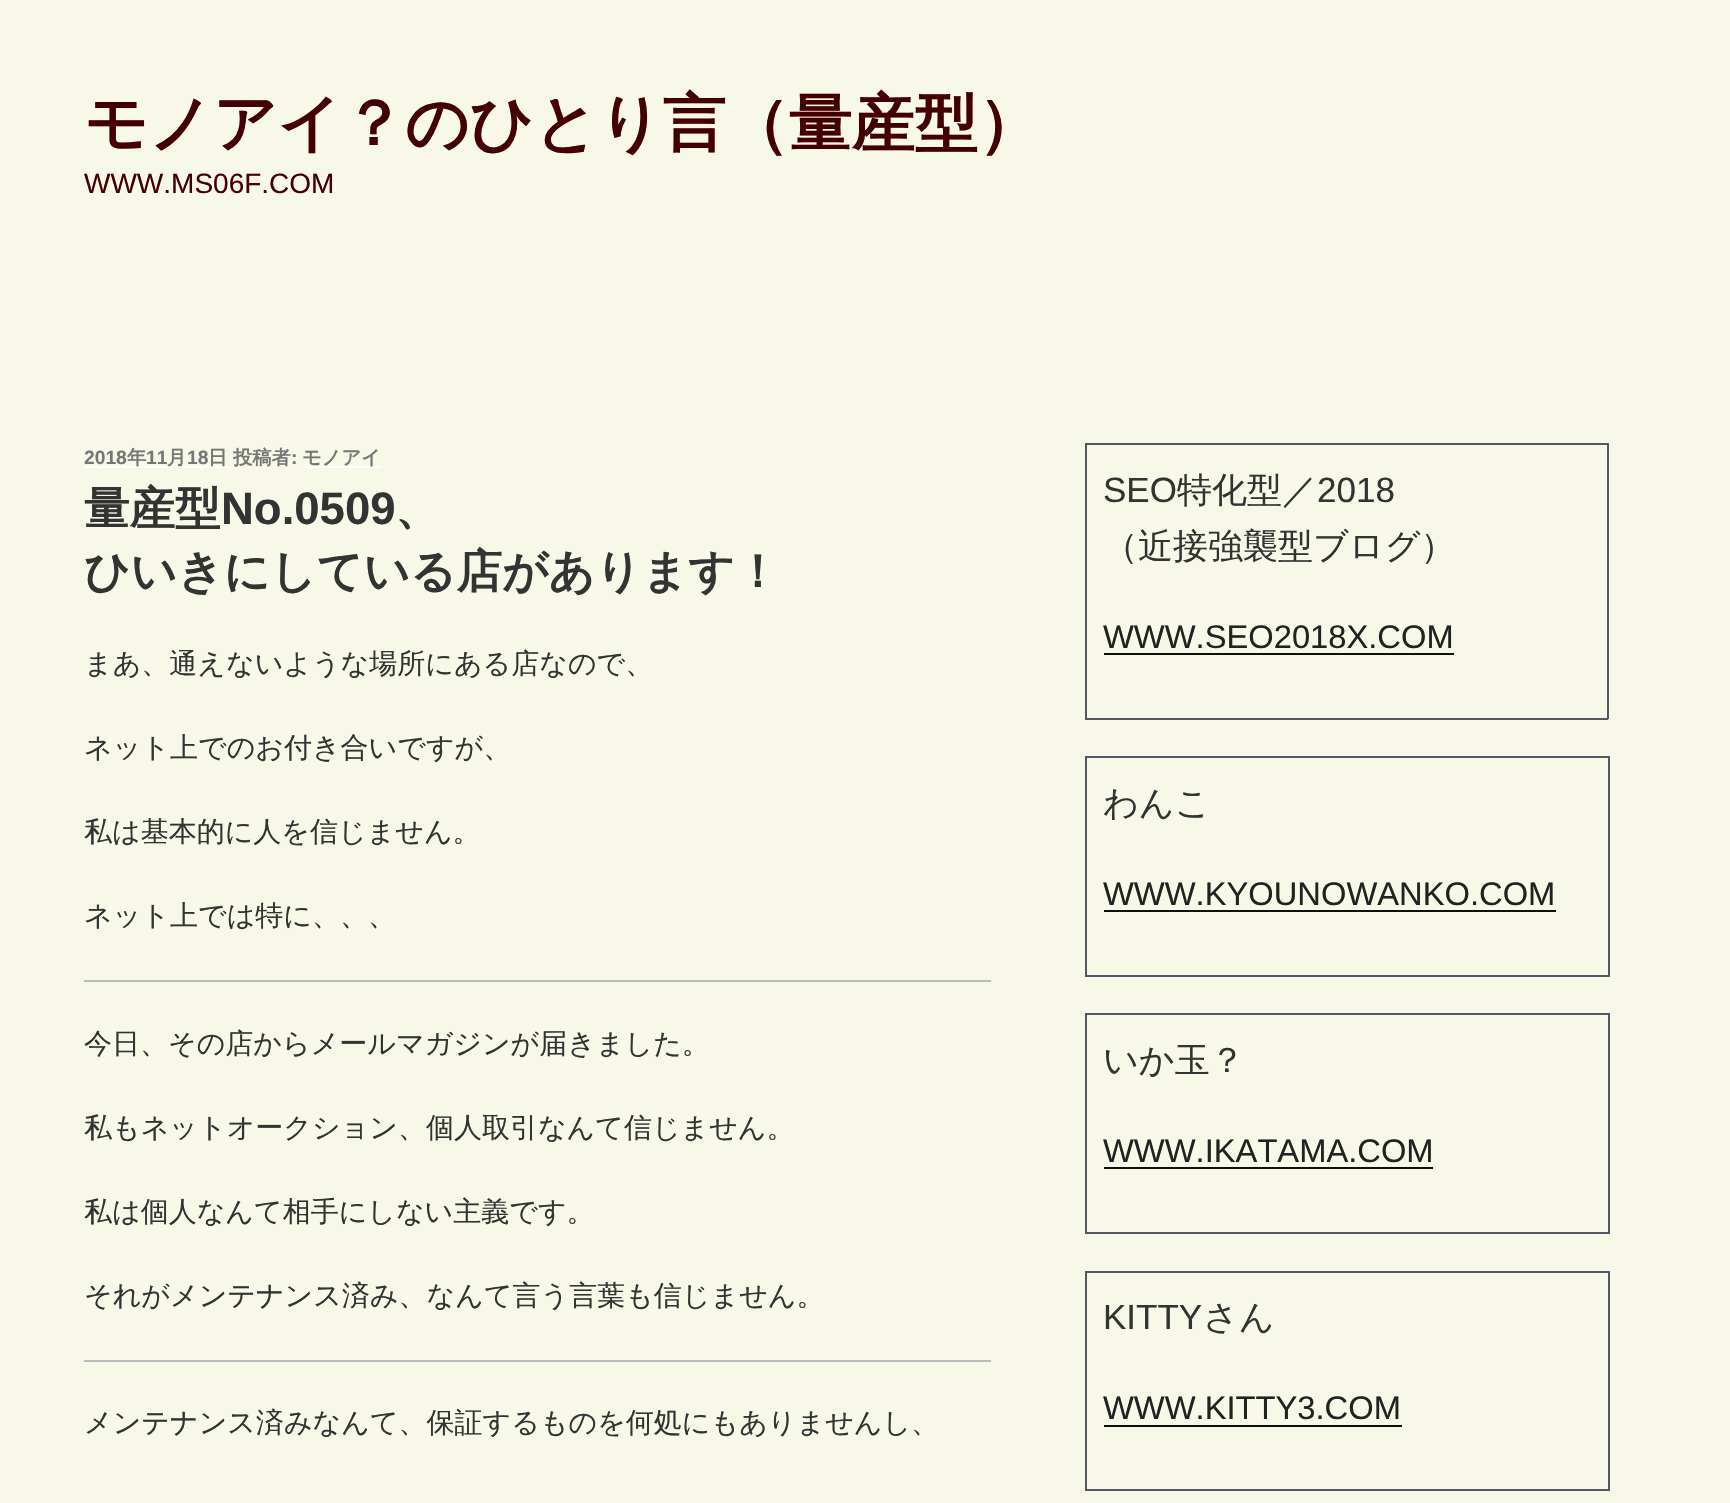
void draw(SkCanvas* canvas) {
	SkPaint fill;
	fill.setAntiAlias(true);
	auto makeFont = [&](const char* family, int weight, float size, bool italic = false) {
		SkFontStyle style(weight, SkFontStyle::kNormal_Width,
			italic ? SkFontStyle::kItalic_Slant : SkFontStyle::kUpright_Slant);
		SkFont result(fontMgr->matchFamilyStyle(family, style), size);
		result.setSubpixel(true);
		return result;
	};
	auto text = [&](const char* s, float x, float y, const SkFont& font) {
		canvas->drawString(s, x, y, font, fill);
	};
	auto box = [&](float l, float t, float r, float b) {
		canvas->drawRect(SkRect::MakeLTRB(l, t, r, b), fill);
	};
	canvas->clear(0xFFF8F8E8);
	fill.setColor(0xFFFFFFFF);
	box(84, 466, 228, 468);
	box(303, 466, 382, 468);
	fill.setColor(0xFFBBBBBB);
	box(84, 980, 991, 982);
	box(84, 1360, 991, 1362);
	fill.setColor(0xFF555566);
	box(1085, 443, 1608, 445);
	box(1607, 443, 1609, 719);
	box(1085, 718, 1608, 720);
	box(1085, 443, 1087, 719);
	fill.setColor(0xFF0F0F0F);
	box(1104, 653, 1454, 655);
	fill.setColor(0xFF555566);
	box(1085, 756, 1610, 758);
	box(1608, 756, 1610, 977);
	box(1085, 975, 1610, 977);
	box(1085, 756, 1087, 977);
	fill.setColor(0xFF0F0F0F);
	box(1104, 910, 1556, 912);
	fill.setColor(0xFF555566);
	box(1085, 1013, 1610, 1015);
	box(1608, 1013, 1610, 1234);
	box(1085, 1232, 1610, 1234);
	box(1085, 1013, 1087, 1234);
	fill.setColor(0xFF0F0F0F);
	box(1104, 1167, 1433, 1169);
	fill.setColor(0xFF555566);
	box(1085, 1271, 1610, 1273);
	box(1608, 1271, 1610, 1491);
	box(1085, 1489, 1610, 1491);
	box(1085, 1271, 1087, 1491);
	fill.setColor(0xFF0F0F0F);
	box(1104, 1425, 1402, 1427);
	auto font1 = makeFont("WenQuanYi Zen Hei", 700, 63);
	fill.setColor(0xFF440000);
	text("モノアイ？のひとり言（量産型）", 84, 145, font1);
	auto font2 = makeFont("Liberation Sans", 400, 28);
	text("WWW.MS06F.COM", 84, 193, font2);
	auto font3 = makeFont("Liberation Sans", 700, 19.25f);
	fill.setColor(0xFF767676);
	text("2018", 84, 464, font3);
	auto font4 = makeFont("WenQuanYi Zen Hei", 700, 19.25f);
	text("年", 127, 464, font4);
	text("11", 146, 464, font3);
	text("月", 167, 464, font4);
	text("18", 187, 464, font3);
	text("日", 208, 464, font4);
	text("投稿者", 233, 464, font4);
	text(":", 291, 464, font3);
	text("モノアイ", 302, 464, font4);
	auto font5 = makeFont("WenQuanYi Zen Hei", 700, 45.5f);
	fill.setColor(0xFF333333);
	text("量産型", 84, 524, font5);
	auto font6 = makeFont("Liberation Sans", 700, 45.5f);
	text("No.0509", 221, 524, font6);
	text("、", 395, 524, font5);
	text("ひいきにしている店があります！", 84, 587, font5);
	auto font7 = makeFont("WenQuanYi Zen Hei", 500, 28);
	text("まあ、通えないような場所にある店なので、", 84, 673, font7);
	text("ネット上でのお付き合いですが、", 84, 757, font7);
	text("私は基本的に人を信じません。", 84, 841, font7);
	text("ネット上では特に、、、", 84, 925, font7);
	text("今日、その店からメールマガジンが届きました。", 84, 1053, font7);
	text("私もネットオークション、個人取引なんて信じません。", 84, 1137, font7);
	text("私は個人なんて相手にしない主義です。", 84, 1221, font7);
	text("それがメンテナンス済み、なんて言う言葉も信じません。", 84, 1305, font7);
	text("メンテナンス済みなんて、保証するものを何処にもありませんし、", 84, 1432, font7);
	auto font8 = makeFont("Liberation Sans", 400, 35);
	text("SEO", 1103, 502, font8);
	auto font9 = makeFont("WenQuanYi Zen Hei", 500, 35);
	text("特化型／", 1177, 502, font9);
	text("2018", 1317, 502, font8);
	text("（近接強襲型ブログ）", 1103, 558, font9);
	auto font10 = makeFont("Liberation Sans", 400, 32.7f);
	fill.setColor(0xFF222222);
	text("WWW.SEO2018X.COM", 1103, 648, font10);
	fill.setColor(0xFF333333);
	text("わんこ", 1103, 815, font9);
	fill.setColor(0xFF222222);
	text("WWW.KYOUNOWANKO.COM", 1103, 905, font10);
	fill.setColor(0xFF333333);
	text("いか玉？", 1103, 1072, font9);
	fill.setColor(0xFF222222);
	text("WWW.IKATAMA.COM", 1103, 1162, font10);
	fill.setColor(0xFF333333);
	text("KITTY", 1103, 1329, font8);
	text("さん", 1203, 1329, font9);
	fill.setColor(0xFF222222);
	text("WWW.KITTY3.COM", 1103, 1419, font10);
}
